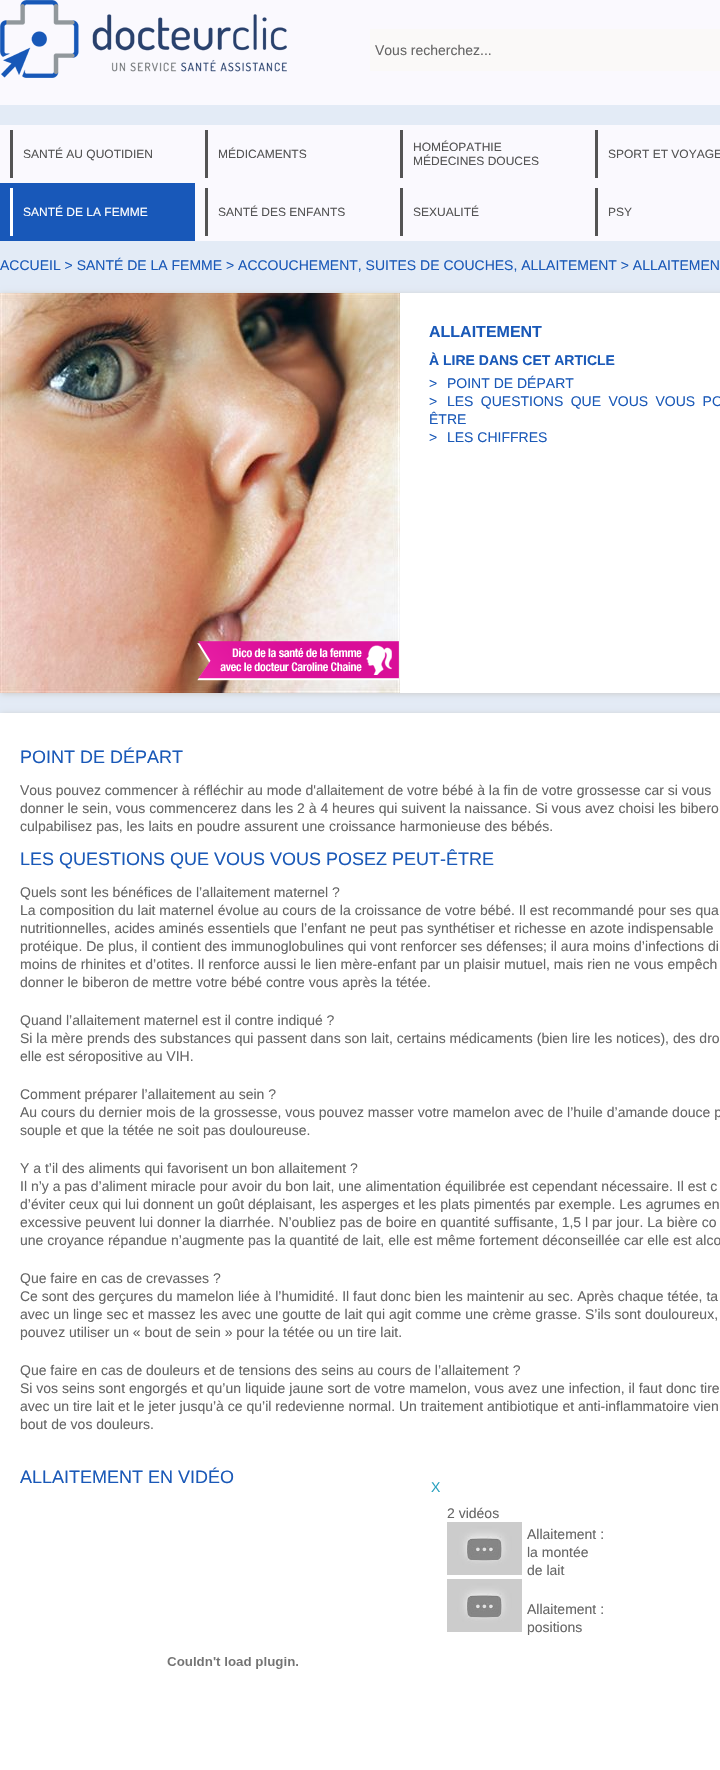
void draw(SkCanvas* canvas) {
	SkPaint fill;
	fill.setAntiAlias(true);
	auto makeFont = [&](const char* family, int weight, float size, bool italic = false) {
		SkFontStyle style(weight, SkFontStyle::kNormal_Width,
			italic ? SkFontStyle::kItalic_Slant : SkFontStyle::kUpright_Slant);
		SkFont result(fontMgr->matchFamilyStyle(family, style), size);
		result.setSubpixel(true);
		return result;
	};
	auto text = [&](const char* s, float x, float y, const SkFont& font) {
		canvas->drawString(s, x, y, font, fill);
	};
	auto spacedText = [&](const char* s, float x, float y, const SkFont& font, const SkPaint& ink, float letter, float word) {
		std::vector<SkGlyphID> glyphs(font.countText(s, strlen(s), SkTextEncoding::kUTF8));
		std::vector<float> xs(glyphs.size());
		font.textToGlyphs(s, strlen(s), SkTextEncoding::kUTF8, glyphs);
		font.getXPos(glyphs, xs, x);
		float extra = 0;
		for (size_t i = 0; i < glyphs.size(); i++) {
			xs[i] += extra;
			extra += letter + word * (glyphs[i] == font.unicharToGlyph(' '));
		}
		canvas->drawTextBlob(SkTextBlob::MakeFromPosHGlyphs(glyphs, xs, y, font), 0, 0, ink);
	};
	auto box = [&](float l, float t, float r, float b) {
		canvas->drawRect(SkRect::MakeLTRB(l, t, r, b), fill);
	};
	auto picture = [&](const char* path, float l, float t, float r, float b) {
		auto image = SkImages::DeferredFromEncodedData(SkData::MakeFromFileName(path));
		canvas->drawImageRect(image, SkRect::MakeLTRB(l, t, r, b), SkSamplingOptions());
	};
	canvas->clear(0xFFE3EBF6);
	fill.setColor(0xFFFAF9FE);
	box(0, 0, 720, 105);
	picture("image0.png", 0, 0, 287, 78);
	fill.setColor(0xFFFAF9F8);
	box(370, 29, 720, 71);
	fill.setColor(0xFFFAF9FE);
	box(0, 125, 720, 183);
	fill.setColor(0xFF545454);
	box(10, 130, 13, 178);
	box(205, 130, 208, 178);
	box(400, 130, 403, 178);
	box(595, 130, 598, 178);
	fill.setColor(0xFFFAF9FE);
	box(195, 183, 720, 241);
	fill.setColor(0xFF1858B9);
	box(0, 183, 195, 241);
	fill.setColor(0xFFFFFFFF);
	box(10, 188, 13, 236);
	fill.setColor(0xFF545454);
	box(205, 188, 208, 236);
	box(400, 188, 403, 236);
	box(595, 188, 598, 236);
	fill.setColor(0xFFCCCCCC);
	fill.setMaskFilter(SkMaskFilter::MakeBlur(kNormal_SkBlurStyle, 3));
	canvas->drawRect(SkRect::MakeLTRB(1, 294, 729, 694), fill);
	fill.setMaskFilter(nullptr);
	fill.setColor(0xFFFFFFFF);
	box(400, 293, 720, 693);
	picture("image1.png", 0, 293, 400, 693);
	picture("image2.png", 197, 641, 400, 681);
	fill.setColor(0xFFCCCCCC);
	fill.setMaskFilter(SkMaskFilter::MakeBlur(kNormal_SkBlurStyle, 3));
	canvas->drawRect(SkRect::MakeLTRB(1, 714, 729, 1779), fill);
	fill.setMaskFilter(nullptr);
	fill.setColor(0xFFFFFFFF);
	box(0, 713, 720, 1770);
	picture("image3.png", 447, 1522, 522, 1575);
	picture("image3.png", 447, 1579, 522, 1632);
	picture("image4.png", 167, 1657, 298, 1669);
	auto font1 = makeFont("Liberation Sans", 400, 14);
	fill.setColor(0xFF666666);
	text("Vous recherchez...", 375, 55, font1);
	auto font2 = makeFont("Liberation Sans", 400, 12);
	fill.setColor(0xFF545454);
	text("SANTÉ AU QUOTIDIEN", 23, 158, font2);
	text("MÉDICAMENTS", 218, 158, font2);
	text("HOMÉOPATHIE", 413, 151, font2);
	text("MÉDECINES DOUCES", 413, 165, font2);
	text("SPORT ET VOYAGE", 608, 158, font2);
	fill.setColor(0xFFFFFFFF);
	text("SANTÉ DE LA FEMME", 23, 216, font2);
	fill.setColor(0xFF545454);
	text("SANTÉ DES ENFANTS", 218, 216, font2);
	text("SEXUALITÉ", 413, 216, font2);
	text("PSY", 608, 216, font2);
	fill.setColor(0xFF1A59B8);
	text("ACCUEIL > SANTÉ DE LA FEMME > ACCOUCHEMENT, SUITES DE COUCHES, ALLAITEMENT > ALLAITEMEN", 0, 270, font1);
	auto font3 = makeFont("Liberation Sans", 700, 16);
	text("ALLAITEMENT", 429, 337, font3);
	auto font4 = makeFont("Liberation Sans", 700, 14);
	text("À LIRE DANS CET ARTICLE", 429, 365, font4);
	text(">", 429, 388, font1);
	text("POINT DE DÉPART", 447, 388, font1);
	text(">", 429, 406, font1);
	spacedText("LES QUESTIONS QUE VOUS VOUS PO", 447, 406, font1, fill, 0, 3.5f);
	text("ÊTRE", 429, 424, font1);
	text(">", 429, 442, font1);
	text("LES CHIFFRES", 447, 442, font1);
	auto font5 = makeFont("Liberation Sans", 400, 18);
	text("POINT DE DÉPART", 20, 763, font5);
	fill.setColor(0xFF666666);
	text("Vous pouvez commencer à réfléchir au mode d'allaitement de votre bébé à la fin de votre grossesse car si vous", 20, 795, font1);
	text("donner le sein, vous commencerez dans les 2 à 4 heures qui suivent la naissance. Si vous avez choisi les bibero", 20, 813, font1);
	text("culpabilisez pas, les laits en poudre assurent une croissance harmonieuse des bébés.", 20, 831, font1);
	fill.setColor(0xFF1A59B8);
	text("LES QUESTIONS QUE VOUS VOUS POSEZ PEUT-ÊTRE", 20, 865, font5);
	fill.setColor(0xFF666666);
	text("Quels sont les bénéfices de l’allaitement maternel ?", 20, 897, font1);
	text("La composition du lait maternel évolue au cours de la croissance de votre bébé. Il est recommandé pour ses qua", 20, 915, font1);
	text("nutritionnelles, acides aminés essentiels que l’enfant ne peut pas synthétiser et richesse en azote indispensable", 20, 933, font1);
	text("protéique. De plus, il contient des immunoglobulines qui vont renforcer ses défenses; il aura moins d’infections di", 20, 951, font1);
	text("moins de rhinites et d’otites. Il renforce aussi le lien mère-enfant par un plaisir mutuel, mais rien ne vous empêch", 20, 969, font1);
	text("donner le biberon de mettre votre bébé contre vous après la tétée.", 20, 987, font1);
	text("Quand l’allaitement maternel est il contre indiqué ?", 20, 1025, font1);
	text("Si la mère prends des substances qui passent dans son lait, certains médicaments (bien lire les notices), des dro", 20, 1043, font1);
	text("elle est séropositive au VIH.", 20, 1061, font1);
	text("Comment préparer l’allaitement au sein ?", 20, 1099, font1);
	text("Au cours du dernier mois de la grossesse, vous pouvez masser votre mamelon avec de l’huile d’amande douce p", 20, 1117, font1);
	text("souple et que la tétée ne soit pas douloureuse.", 20, 1135, font1);
	text("Y a t’il des aliments qui favorisent un bon allaitement ?", 20, 1173, font1);
	text("Il n’y a pas d’aliment miracle pour avoir du bon lait, une alimentation équilibrée est cependant nécessaire. Il est c", 20, 1191, font1);
	text("d’éviter ceux qui lui donnent un goût déplaisant, les asperges et les plats pimentés par exemple. Les agrumes en", 20, 1209, font1);
	text("excessive peuvent lui donner la diarrhée. N’oubliez pas de boire en quantité suffisante, 1,5 l par jour. La bière co", 20, 1227, font1);
	text("une croyance répandue n’augmente pas la quantité de lait, elle est même fortement déconseillée car elle est alco", 20, 1245, font1);
	text("Que faire en cas de crevasses ?", 20, 1283, font1);
	text("Ce sont des gerçures du mamelon liée à l’humidité. Il faut donc bien les maintenir au sec. Après chaque tétée, ta", 20, 1301, font1);
	text("avec un linge sec et massez les avec une goutte de lait qui agit comme une crème grasse. S’ils sont douloureux,", 20, 1319, font1);
	text("pouvez utiliser un « bout de sein » pour la tétée ou un tire lait.", 20, 1337, font1);
	text("Que faire en cas de douleurs et de tensions des seins au cours de l’allaitement ?", 20, 1375, font1);
	text("Si vos seins sont engorgés et qu’un liquide jaune sort de votre mamelon, vous avez une infection, il faut donc tire", 20, 1393, font1);
	text("avec un tire lait et le jeter jusqu’à ce qu’il redevienne normal. Un traitement antibiotique et anti-inflammatoire vien", 20, 1411, font1);
	text("bout de vos douleurs.", 20, 1429, font1);
	fill.setColor(0xFF1A59B8);
	text("ALLAITEMENT EN VIDÉO", 20, 1483, font5);
	fill.setColor(0xFF2CA2C0);
	text("X", 431, 1492, font1);
	fill.setColor(0xFF666666);
	text("2 vidéos", 447, 1518, font1);
	text("Allaitement :", 527, 1539, font1);
	text("la montée", 527, 1557, font1);
	text("de lait", 527, 1575, font1);
	text("Allaitement :", 527, 1614, font1);
	text("positions", 527, 1632, font1);
}
